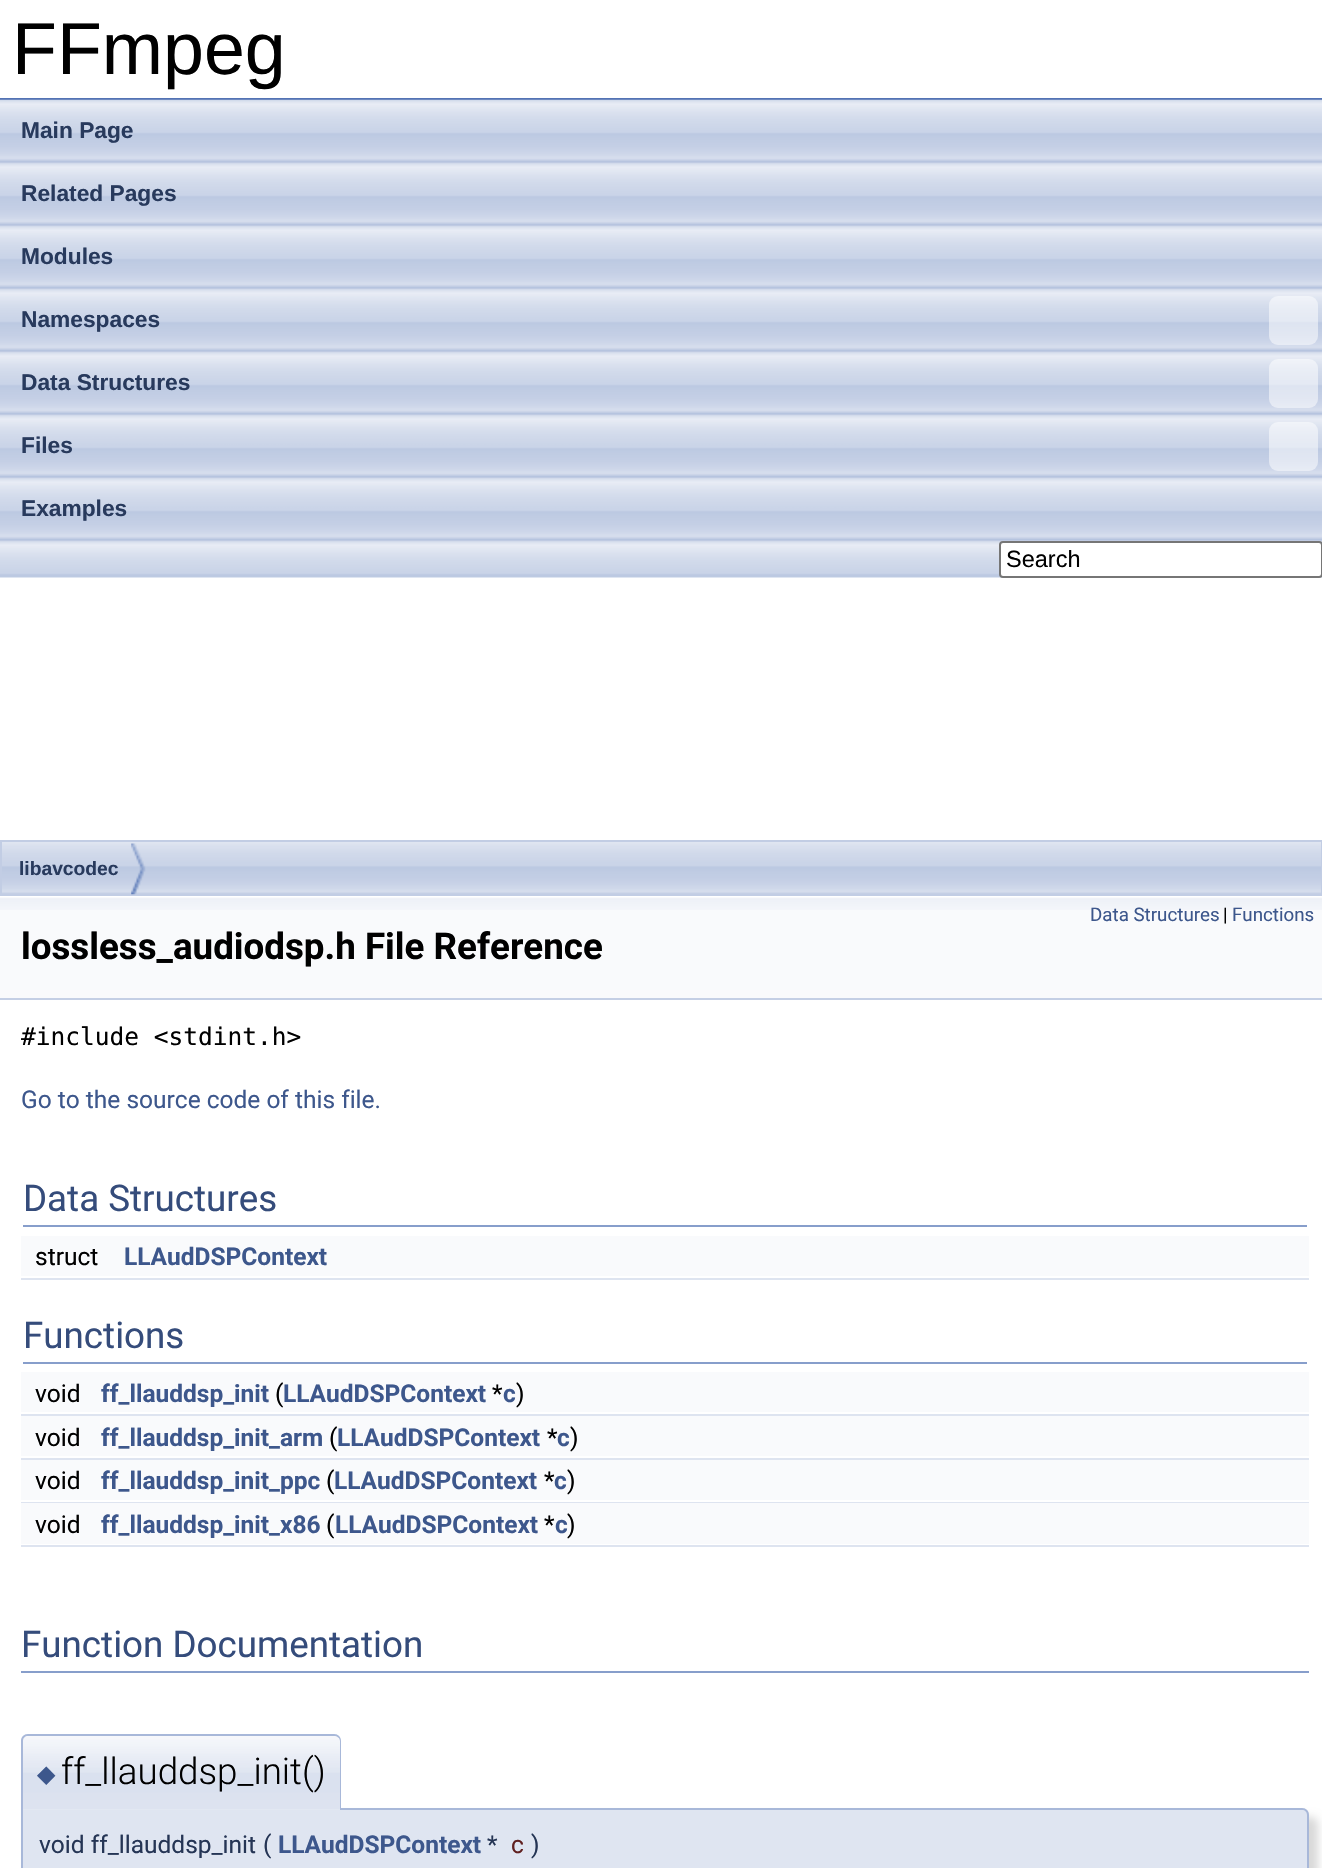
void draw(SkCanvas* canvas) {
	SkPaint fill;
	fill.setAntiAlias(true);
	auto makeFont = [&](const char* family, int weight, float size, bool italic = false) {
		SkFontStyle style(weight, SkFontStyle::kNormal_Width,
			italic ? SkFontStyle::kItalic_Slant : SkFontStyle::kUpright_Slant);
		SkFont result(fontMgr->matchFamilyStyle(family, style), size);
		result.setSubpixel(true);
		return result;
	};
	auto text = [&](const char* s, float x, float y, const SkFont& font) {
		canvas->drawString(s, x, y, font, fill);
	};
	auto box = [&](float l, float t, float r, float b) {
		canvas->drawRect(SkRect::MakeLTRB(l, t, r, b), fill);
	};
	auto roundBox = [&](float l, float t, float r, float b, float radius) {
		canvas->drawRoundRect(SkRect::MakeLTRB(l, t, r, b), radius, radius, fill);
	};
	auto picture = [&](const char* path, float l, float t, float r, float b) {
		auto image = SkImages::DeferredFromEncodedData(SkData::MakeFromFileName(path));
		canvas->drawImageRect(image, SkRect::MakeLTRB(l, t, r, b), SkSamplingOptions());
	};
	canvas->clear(0xFFFFFFFF);
	fill.setColor(0xFF5373B4);
	box(0, 98, 1322, 100);
	picture("image0.png", 0, 99, 1322, 578);
	fill.setColor(0x80FFFFFF);
	roundBox(1269, 296, 1318, 345, 9);
	roundBox(1269, 359, 1318, 408, 9);
	roundBox(1269, 422, 1318, 471, 9);
	fill.setColor(0xFFFFFFFF);
	canvas->drawRoundRect(SkRect::MakeLTRB(1000, 542, 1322, 577), 3, 3, fill);
	fill.setStyle(SkPaint::kStroke_Style);
	fill.setStrokeWidth(2);
	fill.setColor(0xFF767676);
	canvas->drawRoundRect(SkRect::MakeLTRB(1000, 542, 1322, 577), 3, 3, fill);
	picture("image1.png", 2, 842, 1321, 894);
	fill.setColor(0xFFC2CDE4);
	canvas->drawRect(SkRect::MakeLTRB(1, 841, 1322, 895), fill);
	picture("image2.png", 131, 843, 146, 895);
	fill.setStyle(SkPaint::kFill_Style);
	fill.setColor(0xFFF9FAFC);
	box(0, 910, 1322, 998);
	picture("image3.png", 0, 896, 1322, 910);
	fill.setColor(0xFFC4CFE5);
	box(0, 998, 1322, 1000);
	fill.setColor(0xFF879ECB);
	box(23, 1225, 1307, 1227);
	fill.setColor(0xFFF9FAFC);
	box(21, 1236, 1309, 1276);
	fill.setColor(0xFFDEE4F0);
	box(21, 1278, 1309, 1280);
	fill.setColor(0xFF879ECB);
	box(23, 1362, 1307, 1364);
	fill.setColor(0xFFF9FAFC);
	box(21, 1372, 1309, 1412);
	fill.setColor(0xFFDEE4F0);
	box(21, 1414, 1309, 1416);
	fill.setColor(0xFFF9FAFC);
	box(21, 1416, 1309, 1456);
	fill.setColor(0xFFDEE4F0);
	box(21, 1458, 1309, 1460);
	fill.setColor(0xFFF9FAFC);
	box(21, 1460, 1309, 1500);
	fill.setColor(0xFFDEE4F0);
	box(21, 1502, 1309, 1503);
	fill.setColor(0xFFF9FAFC);
	box(21, 1503, 1309, 1544);
	fill.setColor(0xFFDEE4F0);
	box(21, 1545, 1309, 1547);
	fill.setColor(0xFF879ECB);
	box(21, 1671, 1309, 1673);
	fill.setColor(0x26000000);
	fill.setMaskFilter(SkMaskFilter::MakeBlur(kNormal_SkBlurStyle, 4.5f));
	canvas->drawRoundRect(SkRect::MakeLTRB(30, 1817, 1318, 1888), 7, 7, fill);
	fill.setMaskFilter(nullptr);
	fill.setColor(0xFFDFE5F1);
	canvas->drawPath(SkPathBuilder().moveTo(21, 1808).lineTo(1302, 1808).cubicTo(1306, 1808, 1309, 1811, 1309, 1815).lineTo(1309, 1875).lineTo(21, 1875).close().detach(), fill);
	fill.setColor(0xFFA8B8D9);
	canvas->drawPath(SkPathBuilder(SkPathFillType::kEvenOdd).moveTo(21, 1808).lineTo(1302, 1808).cubicTo(1306, 1808, 1309, 1811, 1309, 1815).lineTo(1309, 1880).lineTo(21, 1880).close().moveTo(23, 1810).lineTo(1302, 1810).cubicTo(1305, 1810, 1307, 1812, 1307, 1815).lineTo(1307, 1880).lineTo(23, 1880).close().detach(), fill);
	fill.setColor(0xFFE2E8F2);
	canvas->drawPath(SkPathBuilder().moveTo(28, 1734).lineTo(334, 1734).cubicTo(338, 1734, 341, 1737, 341, 1741).lineTo(341, 1810).lineTo(21, 1810).lineTo(21, 1741).cubicTo(21, 1737, 24, 1734, 28, 1734).close().detach(), fill);
	picture("image4.png", 21, 1736, 341, 1809);
	fill.setColor(0xFFA8B8D9);
	canvas->drawPath(SkPathBuilder(SkPathFillType::kEvenOdd).moveTo(28, 1734).lineTo(334, 1734).cubicTo(338, 1734, 341, 1737, 341, 1741).lineTo(341, 1810).lineTo(21, 1810).lineTo(21, 1741).cubicTo(21, 1737, 24, 1734, 28, 1734).close().moveTo(28, 1736).lineTo(334, 1736).cubicTo(337, 1736, 340, 1738, 340, 1741).lineTo(340, 1810).lineTo(23, 1810).lineTo(23, 1741).cubicTo(23, 1738, 25, 1736, 28, 1736).close().detach(), fill);
	auto font1 = makeFont("Liberation Sans", 400, 73.5f);
	fill.setColor(0xFF000000);
	text("FFmpeg", 12, 74, font1);
	auto font2 = makeFont("Liberation Sans", 700, 22.75f);
	fill.setColor(0xFF283A5D);
	text("Main Page", 21, 138, font2);
	text("Related Pages", 21, 201, font2);
	text("Modules", 21, 264, font2);
	text("Namespaces", 21, 327, font2);
	text("Data Structures", 21, 390, font2);
	text("Files", 21, 453, font2);
	text("Examples", 21, 516, font2);
	auto font3 = makeFont("Liberation Sans", 400, 23.5f);
	fill.setColor(0xFF000000);
	text("Search", 1006, 567, font3);
	auto font4 = makeFont("Liberation Sans", 700, 19.25f);
	fill.setColor(0xFF283A5D);
	text("libavcodec", 19, 875, font4);
	auto font5 = makeFont("Roboto", 400, 18.75f);
	fill.setColor(0xFF3D578C);
	text("Data Structures", 1090, 921, font5);
	fill.setColor(0xFF000000);
	text("|", 1223, 921, font5);
	fill.setColor(0xFF3D578C);
	text("Functions", 1232, 921, font5);
	auto font6 = makeFont("Roboto", 700, 36.75f);
	fill.setColor(0xFF000000);
	text("lossless_audiodsp.h File Reference", 21, 959, font6);
	auto font7 = makeFont("DejaVu Sans Mono", 400, 24.5f);
	text("#include <stdint.h>", 21, 1045, font7);
	auto font8 = makeFont("Roboto", 400, 24.5f);
	fill.setColor(0xFF3D578C);
	text("Go to the source code of this file.", 21, 1108, font8);
	auto font9 = makeFont("Roboto", 400, 36.75f);
	fill.setColor(0xFF354C7B);
	text("Data Structures", 23, 1211, font9);
	fill.setColor(0xFF000000);
	text("struct", 35, 1265, font8);
	auto font10 = makeFont("Roboto", 700, 24.5f);
	fill.setColor(0xFF3D578C);
	text("LLAudDSPContext", 124, 1265, font10);
	fill.setColor(0xFF354C7B);
	text("Functions", 23, 1348, font9);
	fill.setColor(0xFF000000);
	text("void", 35, 1402, font8);
	fill.setColor(0xFF3D578C);
	text("ff_llauddsp_init", 101, 1402, font10);
	fill.setColor(0xFF000000);
	text("(", 275, 1402, font8);
	fill.setColor(0xFF3D578C);
	text("LLAudDSPContext", 283, 1402, font10);
	fill.setColor(0xFF000000);
	text("*", 492, 1402, font8);
	fill.setColor(0xFF3D578C);
	text("c", 503, 1402, font10);
	fill.setColor(0xFF000000);
	text(")", 516, 1402, font8);
	text("void", 35, 1446, font8);
	fill.setColor(0xFF3D578C);
	text("ff_llauddsp_init_arm", 101, 1446, font10);
	fill.setColor(0xFF000000);
	text("(", 329, 1446, font8);
	fill.setColor(0xFF3D578C);
	text("LLAudDSPContext", 337, 1446, font10);
	fill.setColor(0xFF000000);
	text("*", 547, 1446, font8);
	fill.setColor(0xFF3D578C);
	text("c", 557, 1446, font10);
	fill.setColor(0xFF000000);
	text(")", 570, 1446, font8);
	text("void", 35, 1489, font8);
	fill.setColor(0xFF3D578C);
	text("ff_llauddsp_init_ppc", 101, 1489, font10);
	fill.setColor(0xFF000000);
	text("(", 326, 1489, font8);
	fill.setColor(0xFF3D578C);
	text("LLAudDSPContext", 334, 1489, font10);
	fill.setColor(0xFF000000);
	text("*", 544, 1489, font8);
	fill.setColor(0xFF3D578C);
	text("c", 554, 1489, font10);
	fill.setColor(0xFF000000);
	text(")", 567, 1489, font8);
	text("void", 35, 1533, font8);
	fill.setColor(0xFF3D578C);
	text("ff_llauddsp_init_x86", 101, 1533, font10);
	fill.setColor(0xFF000000);
	text("(", 326, 1533, font8);
	fill.setColor(0xFF3D578C);
	text("LLAudDSPContext", 335, 1533, font10);
	fill.setColor(0xFF000000);
	text("*", 544, 1533, font8);
	fill.setColor(0xFF3D578C);
	text("c", 555, 1533, font10);
	fill.setColor(0xFF000000);
	text(")", 567, 1533, font8);
	fill.setColor(0xFF354C7B);
	text("Function Documentation", 21, 1657, font9);
	auto font11 = makeFont("DejaVu Sans", 400, 24);
	fill.setColor(0xFF3D578C);
	text("◆", 37, 1782, font11);
	auto font12 = makeFont("Roboto", 300, 36.75f);
	fill.setColor(0xFF000000);
	text("ff_llauddsp_init()", 61, 1784, font12);
	fill.setColor(0xFF253555);
	text("void ff_llauddsp_init", 39, 1853, font8);
	text("(", 263, 1853, font8);
	fill.setColor(0xFF3D578C);
	text("LLAudDSPContext", 278, 1853, font10);
	fill.setColor(0xFF253555);
	text("*", 487, 1853, font8);
	fill.setColor(0xFF602020);
	text("c", 511, 1853, font8);
	fill.setColor(0xFF253555);
	text(")", 531, 1853, font8);
}
